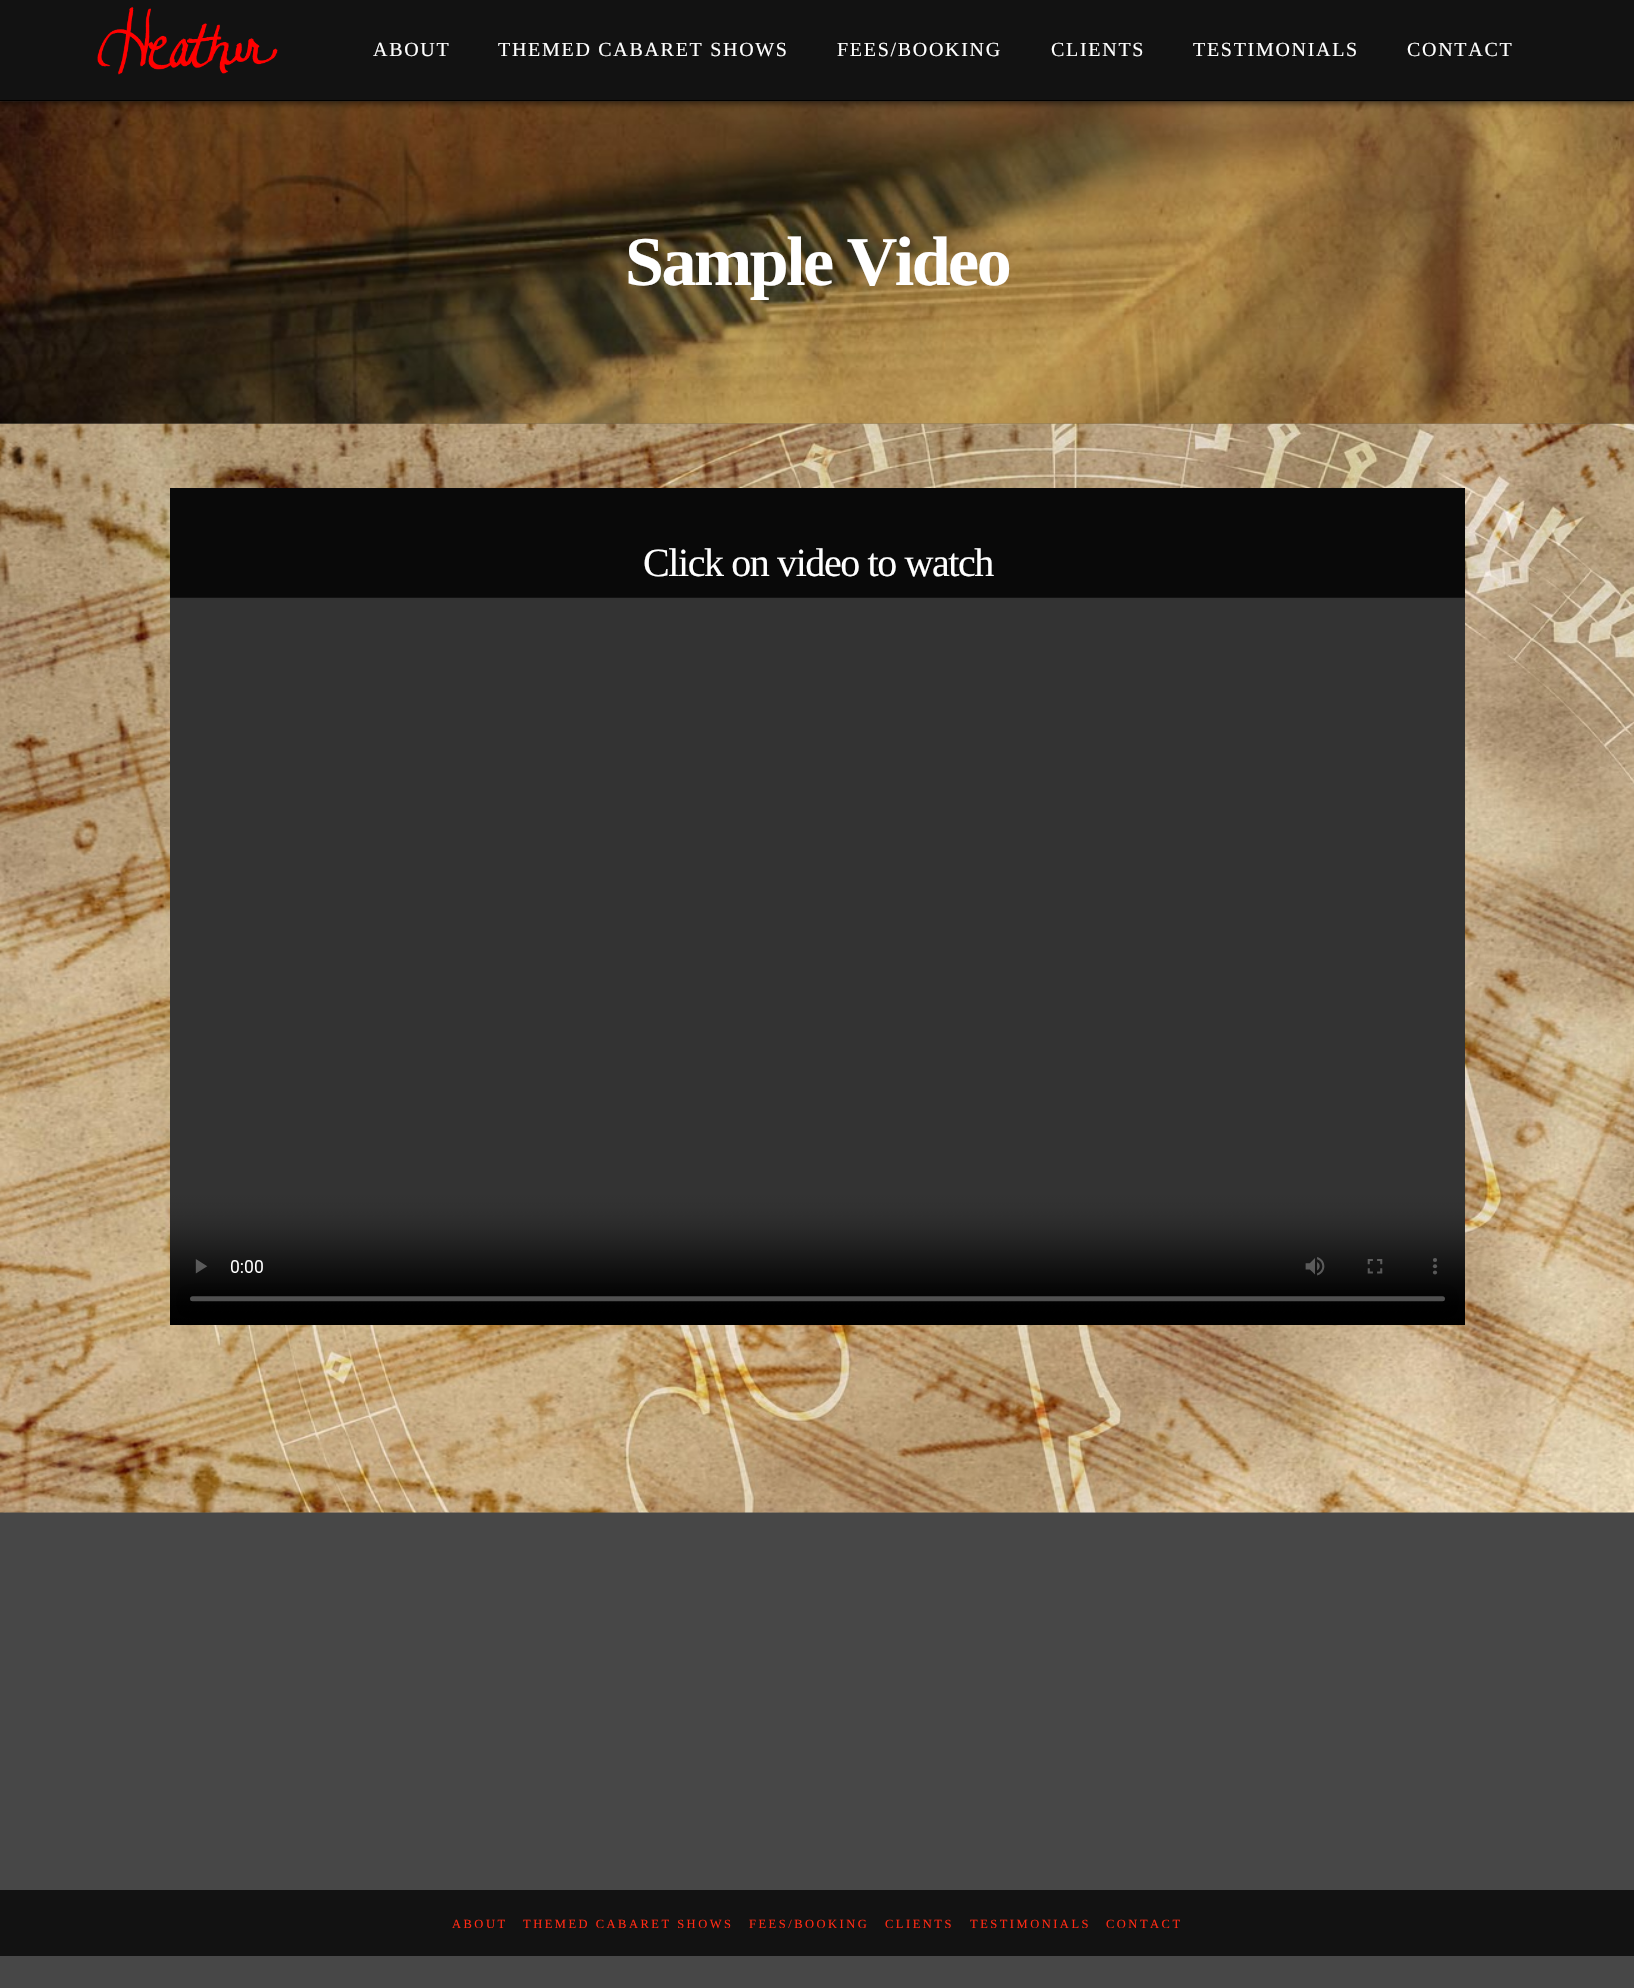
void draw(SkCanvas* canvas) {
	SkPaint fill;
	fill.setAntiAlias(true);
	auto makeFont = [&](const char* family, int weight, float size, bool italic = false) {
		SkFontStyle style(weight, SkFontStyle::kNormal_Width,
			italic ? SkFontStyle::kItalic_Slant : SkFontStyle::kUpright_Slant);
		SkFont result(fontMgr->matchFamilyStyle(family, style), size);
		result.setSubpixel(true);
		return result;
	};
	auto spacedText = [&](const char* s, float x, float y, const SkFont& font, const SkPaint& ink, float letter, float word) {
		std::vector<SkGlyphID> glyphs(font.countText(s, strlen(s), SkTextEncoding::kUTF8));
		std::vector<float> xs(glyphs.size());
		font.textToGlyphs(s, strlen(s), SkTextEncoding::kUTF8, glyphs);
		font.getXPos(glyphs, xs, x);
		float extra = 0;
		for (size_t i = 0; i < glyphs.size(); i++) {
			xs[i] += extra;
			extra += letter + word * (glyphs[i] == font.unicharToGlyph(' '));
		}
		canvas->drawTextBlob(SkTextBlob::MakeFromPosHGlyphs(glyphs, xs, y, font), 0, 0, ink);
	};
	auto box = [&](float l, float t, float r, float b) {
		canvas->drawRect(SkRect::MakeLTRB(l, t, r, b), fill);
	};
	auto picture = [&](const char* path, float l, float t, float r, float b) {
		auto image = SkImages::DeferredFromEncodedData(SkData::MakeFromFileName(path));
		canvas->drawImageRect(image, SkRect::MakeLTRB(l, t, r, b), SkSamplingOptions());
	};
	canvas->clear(0xFF474747);
	picture("image1.png", 0, 101, 1634, 424);
	fill.setColor(0x78000000);
	fill.setMaskFilter(SkMaskFilter::MakeBlur(kNormal_SkBlurStyle, 3));
	canvas->drawRect(SkRect::MakeLTRB(0, 3, 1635, 104), fill);
	fill.setMaskFilter(nullptr);
	fill.setColor(0xFF121212);
	box(0, 0, 1634, 100);
	fill.setColor(0xFF000000);
	box(0, 100, 1634, 101);
	picture("image0.png", 97, 7, 278, 75);
	fill.setColor(0xFF4D4F51);
	box(0, 1512, 1634, 1513);
	picture("image2.png", 0, 423, 1634, 1513);
	fill.setColor(0xFF090909);
	box(170, 488, 1465, 598);
	picture("image3.png", 170, 597, 1465, 1325);
	fill.setColor(0xFF121212);
	box(0, 1890, 1634, 1956);
	auto font1 = makeFont("Liberation Serif", 400, 20);
	fill.setColor(0xFFFFFFFF);
	spacedText("ABOUT", 373, 56, font1, fill, 1.7f, 0);
	spacedText("THEMED CABARET SHOWS", 498, 56, font1, fill, 1.7f, 0);
	spacedText("FEES/BOOKING", 837, 56, font1, fill, 1.7f, 0);
	spacedText("CLIENTS", 1051, 56, font1, fill, 1.7f, 0);
	spacedText("TESTIMONIALS", 1193, 56, font1, fill, 1.7f, 0);
	spacedText("CONTACT", 1407, 56, font1, fill, 1.7f, 0);
	auto font2 = makeFont("Liberation Serif", 700, 70);
	spacedText("Sample Video", 625, 285, font2, fill, -2.5f, 0);
	auto font3 = makeFont("Liberation Serif", 400, 40);
	spacedText("Click on video to watch", 643, 576, font3, fill, -1.4f, 0);
	auto font4 = makeFont("Liberation Serif", 400, 12.5f);
	fill.setColor(0xFFFF2A13);
	spacedText("ABOUT", 452, 1928, font4, fill, 2.5f, 0);
	spacedText("THEMED CABARET SHOWS", 523, 1928, font4, fill, 2.5f, 0);
	spacedText("FEES/BOOKING", 749, 1928, font4, fill, 2.5f, 0);
	spacedText("CLIENTS", 885, 1928, font4, fill, 2.5f, 0);
	spacedText("TESTIMONIALS", 970, 1928, font4, fill, 2.5f, 0);
	spacedText("CONTACT", 1106, 1928, font4, fill, 2.5f, 0);
}
